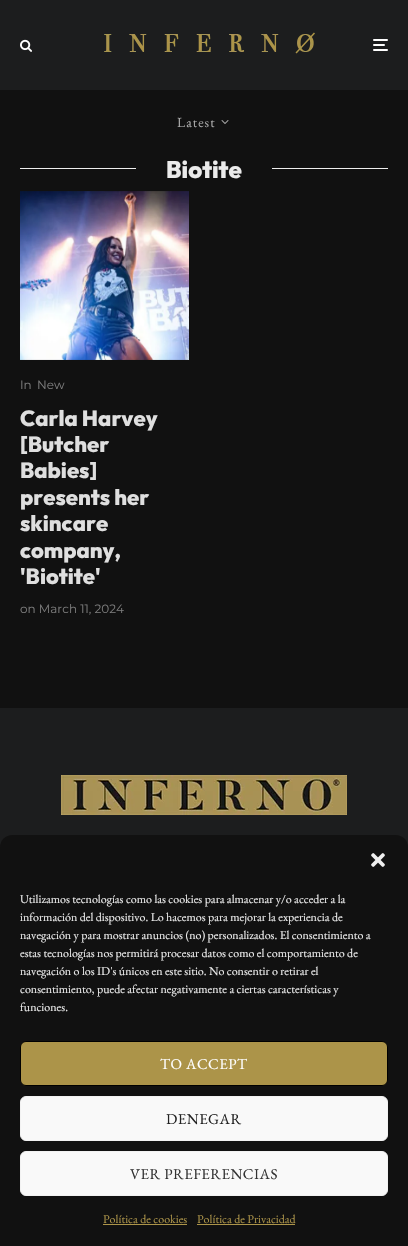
void draw(SkCanvas* canvas) {
	SkPaint fill;
	fill.setAntiAlias(true);
	auto makeFont = [&](const char* family, int weight, float size, bool italic = false) {
		SkFontStyle style(weight, SkFontStyle::kNormal_Width,
			italic ? SkFontStyle::kItalic_Slant : SkFontStyle::kUpright_Slant);
		SkFont result(fontMgr->matchFamilyStyle(family, style), size);
		result.setSubpixel(true);
		return result;
	};
	auto text = [&](const char* s, float x, float y, const SkFont& font) {
		canvas->drawString(s, x, y, font, fill);
	};
	auto spacedText = [&](const char* s, float x, float y, const SkFont& font, const SkPaint& ink, float letter, float word) {
		std::vector<SkGlyphID> glyphs(font.countText(s, strlen(s), SkTextEncoding::kUTF8));
		std::vector<float> xs(glyphs.size());
		font.textToGlyphs(s, strlen(s), SkTextEncoding::kUTF8, glyphs);
		font.getXPos(glyphs, xs, x);
		float extra = 0;
		for (size_t i = 0; i < glyphs.size(); i++) {
			xs[i] += extra;
			extra += letter + word * (glyphs[i] == font.unicharToGlyph(' '));
		}
		canvas->drawTextBlob(SkTextBlob::MakeFromPosHGlyphs(glyphs, xs, y, font), 0, 0, ink);
	};
	auto box = [&](float l, float t, float r, float b) {
		canvas->drawRect(SkRect::MakeLTRB(l, t, r, b), fill);
	};
	auto roundBox = [&](float l, float t, float r, float b, float radius) {
		canvas->drawRoundRect(SkRect::MakeLTRB(l, t, r, b), radius, radius, fill);
	};
	auto picture = [&](const char* path, float l, float t, float r, float b) {
		auto image = SkImages::DeferredFromEncodedData(SkData::MakeFromFileName(path));
		canvas->drawImageRect(image, SkRect::MakeLTRB(l, t, r, b), SkSamplingOptions());
	};
	canvas->clear(0xFF111111);
	fill.setColor(0xFF1C1D1E);
	box(0, 0, 408, 90);
	picture("image0.png", 20, 39, 32, 52);
	picture("image1.png", 104, 32, 315, 54);
	fill.setColor(0xFFFFFFFF);
	roundBox(373, 44, 385, 46, 1);
	roundBox(373, 39, 388, 41, 1);
	roundBox(373, 49, 388, 51, 1);
	picture("image2.png", 221, 120, 229, 124);
	fill.setColor(0xFFEEEEEE);
	box(20, 168, 136, 169);
	box(272, 168, 388, 169);
	picture("image3.png", 20, 191, 189, 360);
	fill.setColor(0xFF1C1D1E);
	box(0, 708, 408, 847);
	picture("image4.png", 61, 775, 347, 815);
	fill.setColor(0xFF111111);
	roundBox(0, 835, 408, 1246, 12);
	picture("image5.png", 371, 853, 385, 867);
	fill.setColor(0xFFAC9449);
	canvas->drawRoundRect(SkRect::MakeLTRB(20.5f, 1041.5f, 387.5f, 1085.5f), 5.5f, 5.5f, fill);
	fill.setStyle(SkPaint::kStroke_Style);
	fill.setStrokeWidth(1);
	fill.setColor(0xFF000000);
	canvas->drawRoundRect(SkRect::MakeLTRB(20.5f, 1041.5f, 387.5f, 1085.5f), 5.5f, 5.5f, fill);
	fill.setStyle(SkPaint::kFill_Style);
	fill.setColor(0xFFF9F9F9);
	canvas->drawRoundRect(SkRect::MakeLTRB(20.5f, 1096.5f, 387.5f, 1140.5f), 5.5f, 5.5f, fill);
	fill.setStyle(SkPaint::kStroke_Style);
	fill.setColor(0xFFF2F2F2);
	canvas->drawRoundRect(SkRect::MakeLTRB(20.5f, 1096.5f, 387.5f, 1140.5f), 5.5f, 5.5f, fill);
	fill.setStyle(SkPaint::kFill_Style);
	fill.setColor(0xFFF9F9F9);
	canvas->drawRoundRect(SkRect::MakeLTRB(20.5f, 1151.5f, 387.5f, 1195.5f), 5.5f, 5.5f, fill);
	fill.setStyle(SkPaint::kStroke_Style);
	fill.setColor(0xFFF2F2F2);
	canvas->drawRoundRect(SkRect::MakeLTRB(20.5f, 1151.5f, 387.5f, 1195.5f), 5.5f, 5.5f, fill);
	fill.setStyle(SkPaint::kFill_Style);
	fill.setColor(0xFFAC9449);
	box(103, 1224, 187, 1225);
	box(197, 1224, 295, 1225);
	auto font1 = makeFont("EB Garamond", 400, 14);
	fill.setColor(0xFFAAAAAA);
	spacedText("Latest", 177, 127, font1, fill, 1, 0);
	auto font2 = makeFont("Outfit", 800, 24);
	fill.setColor(0xFFEBEBEB);
	text("Biotite", 166, 178, font2);
	auto font3 = makeFont("Montserrat", 400, 12);
	fill.setColor(0xFF7B7B7B);
	text("In", 20, 389, font3);
	text("New", 37, 389, font3);
	auto font4 = makeFont("Outfit", 800, 22);
	fill.setColor(0xFFDFDFDF);
	text("Carla Harvey", 20, 426, font4);
	text("[Butcher", 20, 452, font4);
	text("Babies]", 20, 478, font4);
	text("presents her", 20, 505, font4);
	text("skincare", 20, 531, font4);
	text("company,", 20, 558, font4);
	text("'Biotite'", 20, 584, font4);
	fill.setColor(0xFF7B7B7B);
	text("on March 11, 2024", 20, 613, font3);
	auto font5 = makeFont("EB Garamond", 400, 12);
	fill.setColor(0xFFEBEBEB);
	text("Utilizamos tecnologías como las cookies para almacenar y/o acceder a la", 20, 903, font5);
	text("información del dispositivo. Lo hacemos para mejorar la experiencia de", 20, 921, font5);
	text("navegación y para mostrar anuncios (no) personalizados. El consentimiento a", 20, 939, font5);
	text("estas tecnologías nos permitirá procesar datos como el comportamiento de", 20, 957, font5);
	text("navegación o los ID's únicos en este sitio. No consentir o retirar el", 20, 975, font5);
	text("consentimiento, puede afectar negativamente a ciertas características y", 20, 993, font5);
	text("funciones.", 20, 1011, font5);
	auto font6 = makeFont("EB Garamond", 400, 15);
	fill.setColor(0xFFFFFFFF);
	spacedText("TO ACCEPT", 160, 1069, font6, fill, 0.5f, 0);
	fill.setColor(0xFF222222);
	spacedText("DENEGAR", 166, 1124, font6, fill, 0.5f, 0);
	fill.setColor(0xFF333333);
	spacedText("VER PREFERENCIAS", 130, 1179, font6, fill, 0.5f, 0);
	fill.setColor(0xFFAC9449);
	text("Política de cookies", 103, 1223, font5);
	text("Política de Privacidad", 197, 1223, font5);
}
